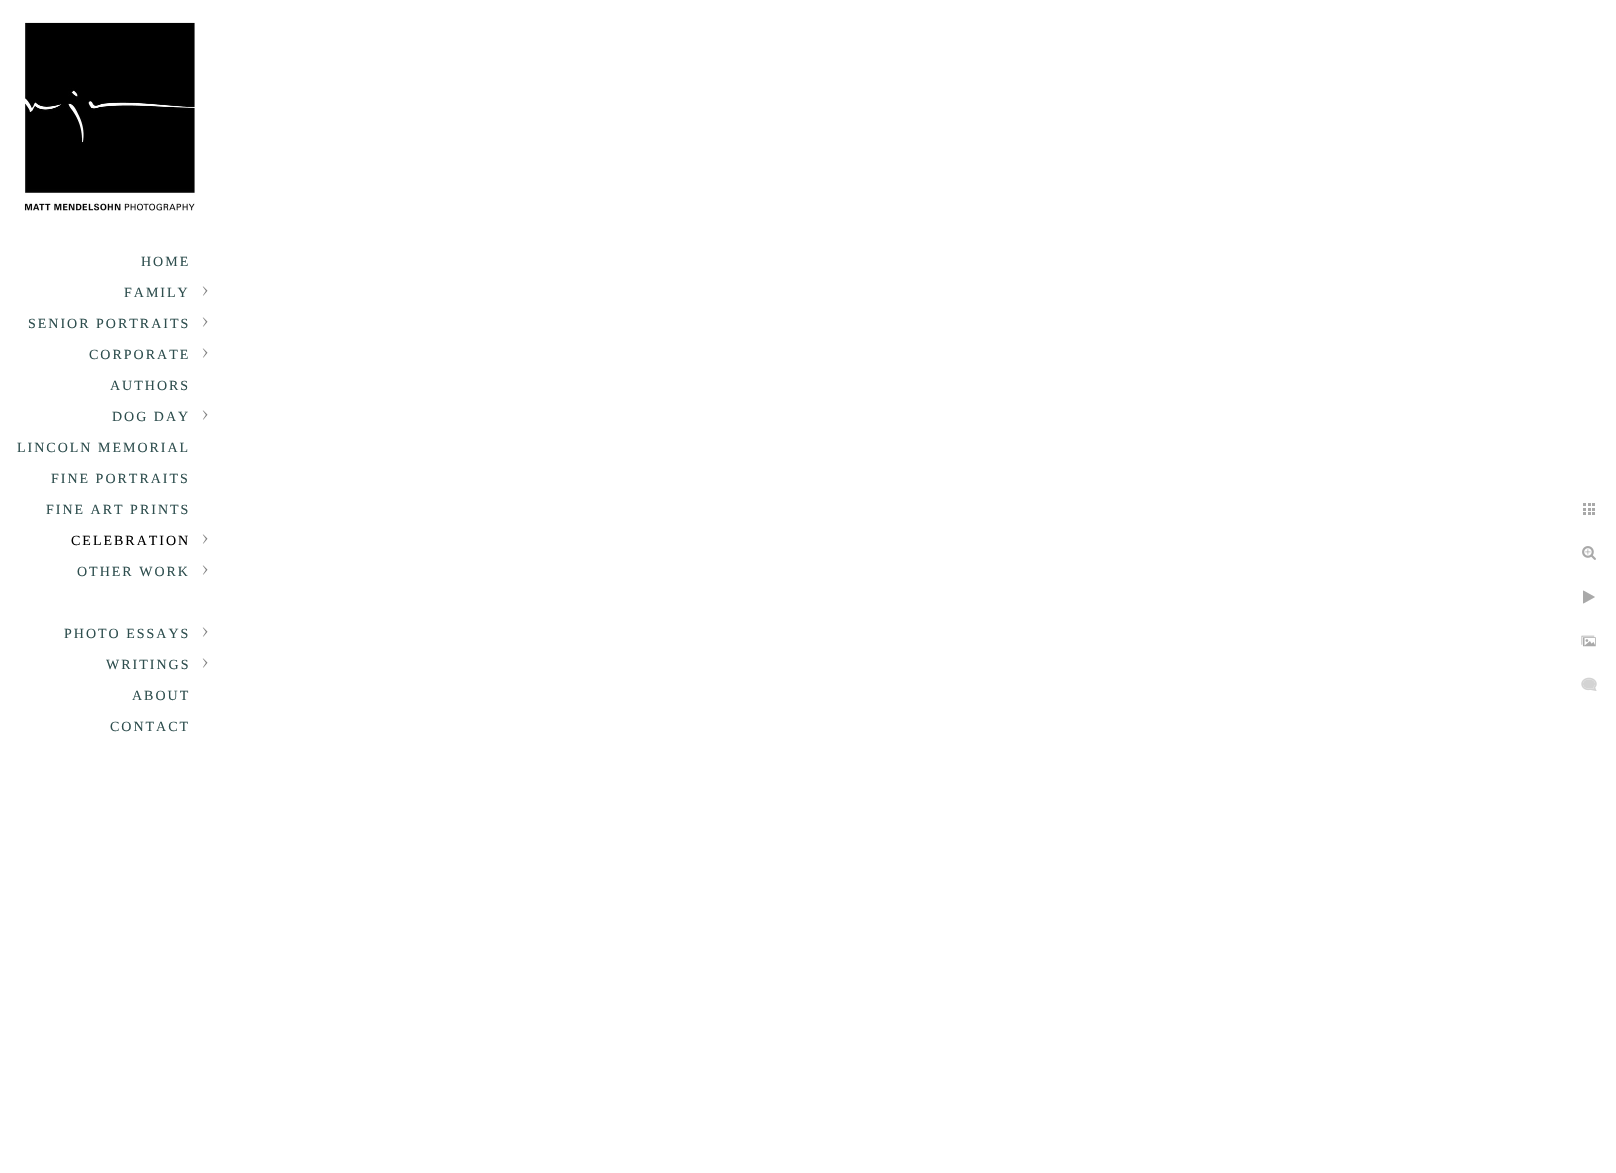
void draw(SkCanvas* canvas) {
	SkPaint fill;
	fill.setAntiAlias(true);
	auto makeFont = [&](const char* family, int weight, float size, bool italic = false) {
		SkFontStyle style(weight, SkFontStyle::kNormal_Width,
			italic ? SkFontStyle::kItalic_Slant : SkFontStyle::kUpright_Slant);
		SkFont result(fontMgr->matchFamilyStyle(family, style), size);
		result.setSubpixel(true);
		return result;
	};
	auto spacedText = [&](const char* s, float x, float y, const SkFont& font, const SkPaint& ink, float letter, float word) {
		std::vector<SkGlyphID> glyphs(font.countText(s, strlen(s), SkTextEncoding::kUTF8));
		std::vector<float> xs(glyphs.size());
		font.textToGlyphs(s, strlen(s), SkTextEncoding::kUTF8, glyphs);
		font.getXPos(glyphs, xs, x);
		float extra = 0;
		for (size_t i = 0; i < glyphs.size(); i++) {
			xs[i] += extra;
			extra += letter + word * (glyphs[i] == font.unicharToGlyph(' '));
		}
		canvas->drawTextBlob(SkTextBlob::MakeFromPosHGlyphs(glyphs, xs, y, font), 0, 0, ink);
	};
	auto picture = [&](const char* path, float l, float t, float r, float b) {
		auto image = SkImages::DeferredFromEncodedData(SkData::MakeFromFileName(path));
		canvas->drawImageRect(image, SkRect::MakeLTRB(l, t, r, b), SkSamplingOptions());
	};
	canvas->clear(0xFFFFFFFF);
	picture("image0.png", 24, 22, 195, 211);
	picture("image1.png", 202, 286, 208, 296);
	picture("image1.png", 202, 317, 208, 327);
	picture("image1.png", 202, 348, 208, 358);
	picture("image1.png", 202, 410, 208, 420);
	picture("image1.png", 202, 534, 208, 544);
	picture("image1.png", 202, 565, 208, 575);
	picture("image1.png", 202, 627, 208, 637);
	picture("image1.png", 202, 658, 208, 668);
	picture("image2.png", 1583, 503, 1595, 515);
	picture("image3.png", 1582, 546, 1596, 560);
	picture("image4.png", 1583, 590, 1595, 604);
	picture("image5.png", 1581, 635, 1596, 647);
	picture("image6.png", 1581, 677, 1597, 691);
	auto font1 = makeFont("Liberation Serif", 400, 14);
	fill.setColor(0xFF2F4F4F);
	spacedText("HOME", 141, 266, font1, fill, 2, 0);
	spacedText("FAMILY", 124, 297, font1, fill, 2, 0);
	spacedText("SENIOR PORTRAITS", 28, 328, font1, fill, 2, 0);
	spacedText("CORPORATE", 89, 359, font1, fill, 2, 0);
	spacedText("AUTHORS", 110, 390, font1, fill, 2, 0);
	spacedText("DOG DAY", 112, 421, font1, fill, 2, 0);
	spacedText("LINCOLN MEMORIAL", 17, 452, font1, fill, 2, 0);
	spacedText("FINE PORTRAITS", 51, 483, font1, fill, 2, 0);
	spacedText("FINE ART PRINTS", 46, 514, font1, fill, 2, 0);
	fill.setColor(0xFF000000);
	spacedText("CELEBRATION", 71, 545, font1, fill, 2, 0);
	fill.setColor(0xFF2F4F4F);
	spacedText("OTHER WORK", 77, 576, font1, fill, 2, 0);
	spacedText("PHOTO ESSAYS", 64, 638, font1, fill, 2, 0);
	spacedText("WRITINGS", 106, 669, font1, fill, 2, 0);
	spacedText("ABOUT", 132, 700, font1, fill, 2, 0);
	spacedText("CONTACT", 110, 731, font1, fill, 2, 0);
}
